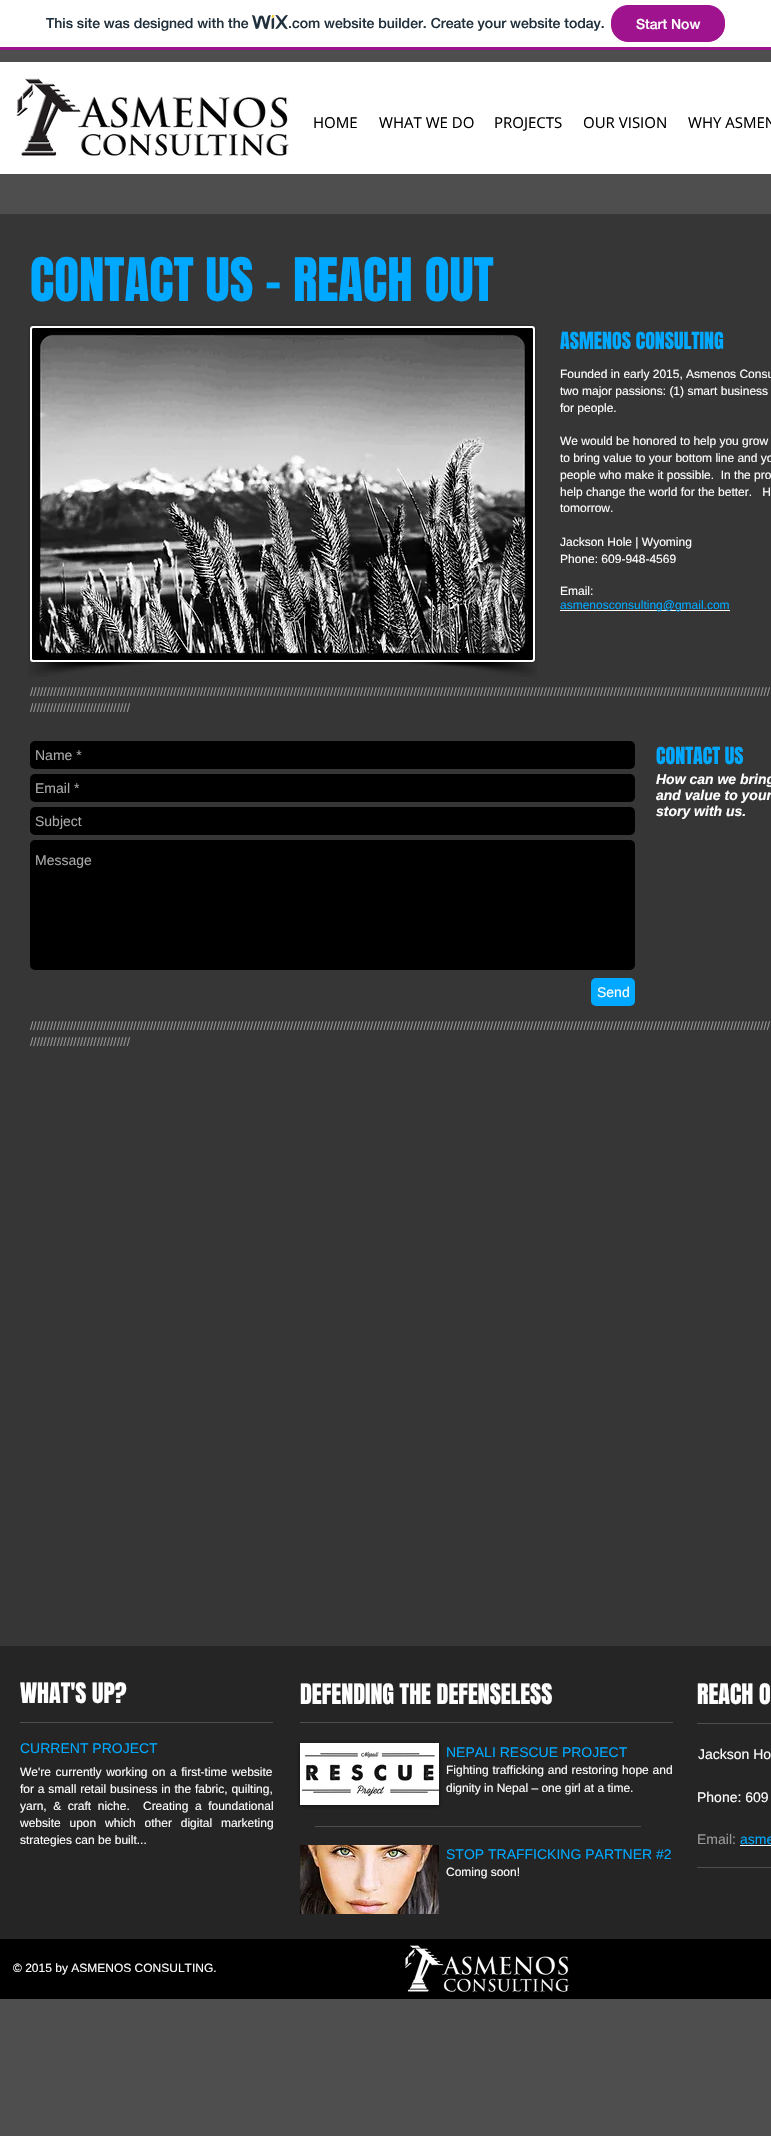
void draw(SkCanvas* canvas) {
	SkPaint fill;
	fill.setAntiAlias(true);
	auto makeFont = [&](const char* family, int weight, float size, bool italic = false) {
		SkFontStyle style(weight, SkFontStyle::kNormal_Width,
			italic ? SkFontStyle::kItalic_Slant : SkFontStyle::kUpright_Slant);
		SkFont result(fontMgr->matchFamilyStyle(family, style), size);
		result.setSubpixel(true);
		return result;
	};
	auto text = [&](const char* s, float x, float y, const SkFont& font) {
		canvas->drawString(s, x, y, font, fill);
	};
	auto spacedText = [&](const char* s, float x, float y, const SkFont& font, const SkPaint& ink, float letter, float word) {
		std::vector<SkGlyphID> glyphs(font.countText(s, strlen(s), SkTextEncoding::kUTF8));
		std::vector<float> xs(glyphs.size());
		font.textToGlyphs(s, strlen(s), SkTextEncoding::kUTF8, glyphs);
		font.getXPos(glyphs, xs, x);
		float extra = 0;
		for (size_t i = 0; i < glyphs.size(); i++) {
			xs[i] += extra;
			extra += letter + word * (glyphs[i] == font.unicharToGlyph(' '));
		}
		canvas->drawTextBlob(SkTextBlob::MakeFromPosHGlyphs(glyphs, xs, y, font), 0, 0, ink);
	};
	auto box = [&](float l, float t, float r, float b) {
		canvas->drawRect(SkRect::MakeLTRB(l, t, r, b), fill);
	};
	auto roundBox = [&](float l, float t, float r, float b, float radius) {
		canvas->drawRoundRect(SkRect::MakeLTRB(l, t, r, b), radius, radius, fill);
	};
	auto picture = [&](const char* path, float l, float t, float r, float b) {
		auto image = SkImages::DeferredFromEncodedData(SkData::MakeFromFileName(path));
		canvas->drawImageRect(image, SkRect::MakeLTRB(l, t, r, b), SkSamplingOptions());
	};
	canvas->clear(0xFFFFFFFF);
	fill.setColor(0xFFA0138E);
	box(0, 47, 771, 50);
	picture("image0.png", 252, 15, 288, 30);
	canvas->drawRoundRect(SkRect::MakeLTRB(611.5f, 5.5f, 724.5f, 41.5f), 16.5f, 16.5f, fill);
	fill.setStyle(SkPaint::kStroke_Style);
	fill.setStrokeWidth(1);
	canvas->drawRoundRect(SkRect::MakeLTRB(611.5f, 5.5f, 724.5f, 41.5f), 16.5f, 16.5f, fill);
	fill.setStyle(SkPaint::kFill_Style);
	fill.setColor(0xFF4E4E4E);
	box(0, 50, 771, 2136);
	fill.setColor(0xFFFFFFFF);
	box(0, 62, 771, 174);
	picture("image1.png", 16, 78, 289, 156);
	fill.setColor(0xFF363636);
	box(0, 214, 771, 1646);
	fill.setColor(0x80000000);
	fill.setMaskFilter(SkMaskFilter::MakeBlur(kNormal_SkBlurStyle, 1.5f));
	canvas->drawRoundRect(SkRect::MakeLTRB(30, 326, 535, 662), 3, 3, fill);
	fill.setMaskFilter(nullptr);
	fill.setColor(0xFFFFFFFF);
	canvas->drawRoundRect(SkRect::MakeLTRB(31, 327, 534, 661), 2, 2, fill);
	fill.setStyle(SkPaint::kStroke_Style);
	fill.setStrokeWidth(2);
	canvas->drawRoundRect(SkRect::MakeLTRB(31, 327, 534, 661), 2, 2, fill);
	picture("image2.png", 32, 328, 533, 660);
	picture("image3.png", 28, 662, 155, 677);
	picture("image4.png", 410, 662, 537, 677);
	fill.setStyle(SkPaint::kFill_Style);
	box(560, 610, 730, 611);
	fill.setColor(0xFF000000);
	roundBox(30, 741, 635, 769, 5);
	roundBox(30, 774, 635, 802, 5);
	roundBox(30, 807, 635, 835, 5);
	roundBox(30, 840, 635, 970, 5);
	fill.setColor(0xFF00A9FF);
	roundBox(591, 978, 635, 1006, 5);
	fill.setColor(0xFF252525);
	box(0, 1646, 771, 1939);
	fill.setColor(0xFF4E4E4E);
	box(20, 1722, 273, 1723);
	box(300, 1722, 673, 1723);
	box(697, 1723, 771, 1724);
	fill.setColor(0x99000000);
	fill.setMaskFilter(SkMaskFilter::MakeBlur(kNormal_SkBlurStyle, 2));
	canvas->drawRect(SkRect::MakeLTRB(300, 1744, 439, 1806), fill);
	fill.setMaskFilter(nullptr);
	fill.setColor(0xFFFFFFFF);
	box(300, 1743, 439, 1805);
	picture("image5.png", 302, 1751, 439, 1797);
	fill.setColor(0xFF4E4E4E);
	box(315, 1826, 641, 1827);
	fill.setColor(0xFFFFFFFF);
	box(740, 1845, 771, 1846);
	picture("image6.png", 300, 1845, 439, 1914);
	fill.setColor(0xFF4E4E4E);
	box(697, 1867, 771, 1868);
	fill.setColor(0xFF000000);
	box(0, 1939, 771, 1999);
	picture("image7.png", 405, 1945, 570, 1993);
	auto font1 = makeFont("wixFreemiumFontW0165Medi", 500, 14);
	fill.setColor(0xFF20303C);
	text("This site was designed with the", 46, 28, font1);
	text(".com website builder. Create your website today.", 288, 28, font1);
	fill.setColor(0xFFFFFFFF);
	text("Start Now", 636, 29, font1);
	auto font2 = makeFont("Open Sans", 400, 15);
	fill.setColor(0xFF000000);
	text("HOME", 313, 128, font2);
	text("WHAT WE DO", 379, 128, font2);
	text("PROJECTS", 494, 128, font2);
	text("OUR VISION", 583, 128, font2);
	text("WHY ASMEN", 688, 128, font2);
	auto font3 = makeFont("Anton", 400, 51);
	fill.setColor(0xFF00A9FF);
	text("CONTACT US – REACH OUT", 30, 301, font3);
	auto font4 = makeFont("Anton", 400, 20);
	text("ASMENOS CONSULTING", 560, 349, font4);
	auto font5 = makeFont("Liberation Sans", 400, 12);
	fill.setColor(0xFFFFFFFF);
	text("Founded in early 2015, Asmenos Consu", 560, 378, font5);
	text("two major passions: (1) smart business", 560, 395, font5);
	text("for people.", 560, 412, font5);
	text("We would be honored to help you grow", 560, 445, font5);
	text("to bring value to your bottom line and yo", 560, 462, font5);
	text("people who make it possible.  In the pro", 560, 479, font5);
	text("help change the world for the better.   H", 560, 496, font5);
	text("tomorrow.", 560, 512, font5);
	text("Jackson Hole | Wyoming", 560, 546, font5);
	text("Phone: 609-948-4569", 560, 563, font5);
	text("Email:", 560, 595, font5);
	fill.setColor(0xFF00A9FF);
	text("asmenosconsulting@gmail.com", 560, 609, font5);
	fill.setColor(0xFF9A9A9A);
	text("//////////////////////////////////////////////////////////////////////////////////////////////////////////////////////////////////////////////////////////////////////////////////////////////////////////////////////////////", 30, 696, font5);
	text("//////////////////////////////", 30, 712, font5);
	auto font6 = makeFont("Liberation Sans", 400, 14);
	fill.setColor(0xFFA9A9A9);
	text("Name *", 35, 760, font6);
	text("Email *", 35, 793, font6);
	text("Subject", 35, 826, font6);
	text("Message", 35, 865, font6);
	fill.setColor(0xFFFFFFFF);
	text("Send", 597, 997, font6);
	fill.setColor(0xFF00A9FF);
	text("CONTACT US", 656, 764, font4);
	auto font7 = makeFont("Liberation Sans", 700, 14, true);
	fill.setColor(0xFFFFFFFF);
	text("How can we bring", 656, 784, font7);
	text("and value to your", 656, 800, font7);
	text("story with us.", 656, 816, font7);
	fill.setColor(0xFF9A9A9A);
	text("//////////////////////////////////////////////////////////////////////////////////////////////////////////////////////////////////////////////////////////////////////////////////////////////////////////////////////////////", 30, 1030, font5);
	text("//////////////////////////////", 30, 1046, font5);
	auto font8 = makeFont("Anton", 400, 24);
	fill.setColor(0xFFFFFFFF);
	text("WHAT'S UP?", 20, 1703, font8);
	text("DEFENDING THE DEFENSELESS", 300, 1704, font8);
	text("REACH O", 697, 1704, font8);
	fill.setColor(0xFF00A9FF);
	text("CURRENT PROJECT", 20, 1753, font6);
	fill.setColor(0xFFFFFFFF);
	spacedText("We're currently working on a first-time website", 20, 1776, font5, fill, 0, 1.25f);
	spacedText("for a small retail business in the fabric, quilting,", 20, 1793, font5, fill, 0, 0.5f);
	spacedText("yarn, & craft niche.  Creating a foundational", 20, 1810, font5, fill, 0, 3.25f);
	spacedText("website upon which other digital marketing", 20, 1827, font5, fill, 0, 5.5f);
	text("strategies can be built...", 20, 1844, font5);
	fill.setColor(0xFF00A9FF);
	text("NEPALI RESCUE PROJECT", 446, 1757, font6);
	fill.setColor(0xFFFFFFFF);
	spacedText("Fighting trafficking and restoring hope and", 446, 1774, font5, fill, 0, 0.5f);
	text("dignity in Nepal – one girl at a time.", 446, 1792, font5);
	text("Jackson Ho", 698, 1759, font6);
	text("Phone: 609", 697, 1802, font6);
	fill.setColor(0xFF9A9A9A);
	text("Email:", 697, 1844, font6);
	fill.setColor(0xFF00A9FF);
	text("asme", 740, 1844, font6);
	text("STOP TRAFFICKING PARTNER #2", 446, 1859, font6);
	fill.setColor(0xFFFFFFFF);
	text("Coming soon!", 446, 1876, font5);
	text("© 2015 by ASMENOS CONSULTING.", 13, 1972, font5);
}
